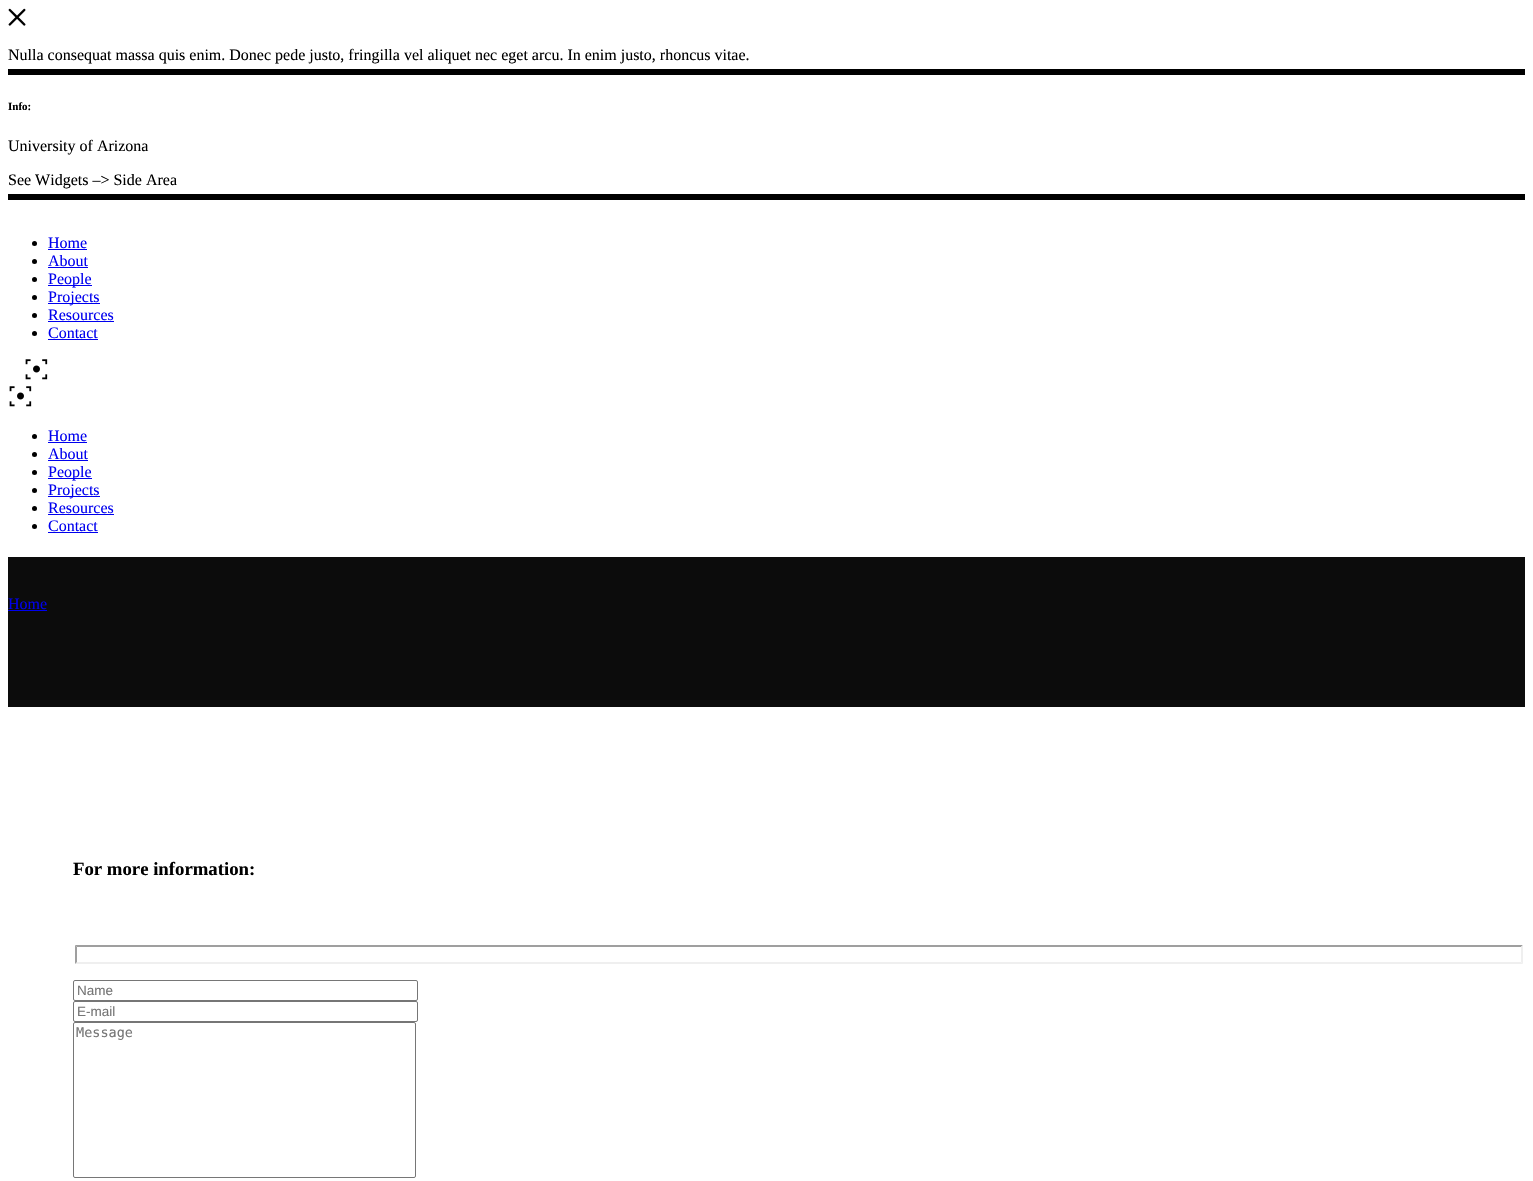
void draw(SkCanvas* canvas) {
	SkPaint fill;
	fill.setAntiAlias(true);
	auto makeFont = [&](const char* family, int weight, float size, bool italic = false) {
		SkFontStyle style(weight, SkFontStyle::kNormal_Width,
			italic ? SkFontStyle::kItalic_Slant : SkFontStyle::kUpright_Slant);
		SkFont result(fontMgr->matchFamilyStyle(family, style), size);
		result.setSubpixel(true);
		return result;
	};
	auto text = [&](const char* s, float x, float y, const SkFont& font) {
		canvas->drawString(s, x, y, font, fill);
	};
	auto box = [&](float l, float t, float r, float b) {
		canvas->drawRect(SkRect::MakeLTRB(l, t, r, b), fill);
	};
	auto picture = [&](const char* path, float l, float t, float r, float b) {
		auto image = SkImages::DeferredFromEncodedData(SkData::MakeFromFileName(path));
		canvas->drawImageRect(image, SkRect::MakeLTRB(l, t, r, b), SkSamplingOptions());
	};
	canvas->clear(0xFFFFFFFF);
	picture("image0.png", 8, 8, 26, 26);
	fill.setColor(0xFF000000);
	box(8, 69, 1525, 75);
	box(8, 194, 1525, 200);
	canvas->drawCircle(34.5f, 243.5f, 2.5f, fill);
	fill.setColor(0xFF0000EE);
	box(48, 249, 87, 250);
	fill.setColor(0xFF000000);
	canvas->drawCircle(34.5f, 261.5f, 2.5f, fill);
	fill.setColor(0xFF0000EE);
	box(48, 267, 88, 268);
	fill.setColor(0xFF000000);
	canvas->drawCircle(34.5f, 279.5f, 2.5f, fill);
	fill.setColor(0xFF0000EE);
	box(48, 285, 92, 286);
	fill.setColor(0xFF000000);
	canvas->drawCircle(34.5f, 297.5f, 2.5f, fill);
	fill.setColor(0xFF0000EE);
	box(48, 303, 100, 304);
	fill.setColor(0xFF000000);
	canvas->drawCircle(34.5f, 315.5f, 2.5f, fill);
	fill.setColor(0xFF0000EE);
	box(48, 321, 114, 322);
	fill.setColor(0xFF000000);
	canvas->drawCircle(34.5f, 333.5f, 2.5f, fill);
	fill.setColor(0xFF0000EE);
	box(48, 339, 98, 340);
	picture("image1.png", 25, 359, 48, 380);
	picture("image1.png", 9, 386, 32, 407);
	fill.setColor(0xFF000000);
	canvas->drawCircle(34.5f, 436.5f, 2.5f, fill);
	fill.setColor(0xFF0000EE);
	box(48, 442, 87, 443);
	fill.setColor(0xFF000000);
	canvas->drawCircle(34.5f, 454.5f, 2.5f, fill);
	fill.setColor(0xFF0000EE);
	box(48, 460, 88, 461);
	fill.setColor(0xFF000000);
	canvas->drawCircle(34.5f, 472.5f, 2.5f, fill);
	fill.setColor(0xFF0000EE);
	box(48, 478, 92, 479);
	fill.setColor(0xFF000000);
	canvas->drawCircle(34.5f, 490.5f, 2.5f, fill);
	fill.setColor(0xFF0000EE);
	box(48, 496, 100, 497);
	fill.setColor(0xFF000000);
	canvas->drawCircle(34.5f, 508.5f, 2.5f, fill);
	fill.setColor(0xFF0000EE);
	box(48, 514, 114, 515);
	fill.setColor(0xFF000000);
	canvas->drawCircle(34.5f, 526.5f, 2.5f, fill);
	fill.setColor(0xFF0000EE);
	box(48, 532, 98, 533);
	fill.setColor(0xFF0C0C0C);
	box(8, 557, 1525, 707);
	fill.setColor(0xFF0000EE);
	box(8, 610, 47, 611);
	fill.setColor(0xFF9F9F9F);
	canvas->drawPath(SkPathBuilder().moveTo(75, 945).lineTo(1523, 945).lineTo(1521, 947).lineTo(77, 947).close().detach(), fill);
	fill.setColor(0xFFEFEFEF);
	canvas->drawPath(SkPathBuilder().moveTo(1523, 945).lineTo(1523, 964).lineTo(1521, 962).lineTo(1521, 947).close().detach(), fill);
	canvas->drawPath(SkPathBuilder().moveTo(1523, 964).lineTo(75, 964).lineTo(77, 962).lineTo(1521, 962).close().detach(), fill);
	fill.setColor(0xFF9F9F9F);
	canvas->drawPath(SkPathBuilder().moveTo(75, 964).lineTo(75, 945).lineTo(77, 947).lineTo(77, 962).close().detach(), fill);
	fill.setStyle(SkPaint::kStroke_Style);
	fill.setStrokeWidth(1);
	fill.setColor(0xFF767676);
	canvas->drawRoundRect(SkRect::MakeLTRB(73.5f, 980.5f, 417.5f, 1000.5f), 1.5f, 1.5f, fill);
	canvas->drawRoundRect(SkRect::MakeLTRB(73.5f, 1001.5f, 417.5f, 1021.5f), 1.5f, 1.5f, fill);
	canvas->drawRoundRect(SkRect::MakeLTRB(73.5f, 1022.5f, 415.5f, 1177.5f), 1.5f, 1.5f, fill);
	auto font1 = makeFont("Liberation Serif", 400, 16);
	fill.setStyle(SkPaint::kFill_Style);
	fill.setColor(0xFF000000);
	text("Nulla consequat massa quis enim. Donec pede justo, fringilla vel aliquet nec eget arcu. In enim justo, rhoncus vitae.", 8, 60, font1);
	auto font2 = makeFont("Liberation Serif", 700, 11);
	text("Info:", 8, 110, font2);
	text("University of Arizona", 8, 151, font1);
	text("See Widgets –> Side Area", 8, 185, font1);
	fill.setColor(0xFF0000EE);
	text("Home", 48, 248, font1);
	text("About", 48, 266, font1);
	text("People", 48, 284, font1);
	text("Projects", 48, 302, font1);
	text("Resources", 48, 320, font1);
	text("Contact", 48, 338, font1);
	text("Home", 48, 441, font1);
	text("About", 48, 459, font1);
	text("People", 48, 477, font1);
	text("Projects", 48, 495, font1);
	text("Resources", 48, 513, font1);
	text("Contact", 48, 531, font1);
	text("Home", 8, 609, font1);
	auto font3 = makeFont("Liberation Serif", 700, 18.75f);
	fill.setColor(0xFF000000);
	text("For more information:", 73, 875, font3);
	auto font4 = makeFont("Liberation Sans", 400, 13.5f);
	fill.setColor(0xFF757575);
	text("Name", 77, 995, font4);
	text("E-mail", 77, 1016, font4);
	auto font5 = makeFont("DejaVu Sans Mono", 400, 13.5f);
	text("Message", 76, 1037, font5);
}
